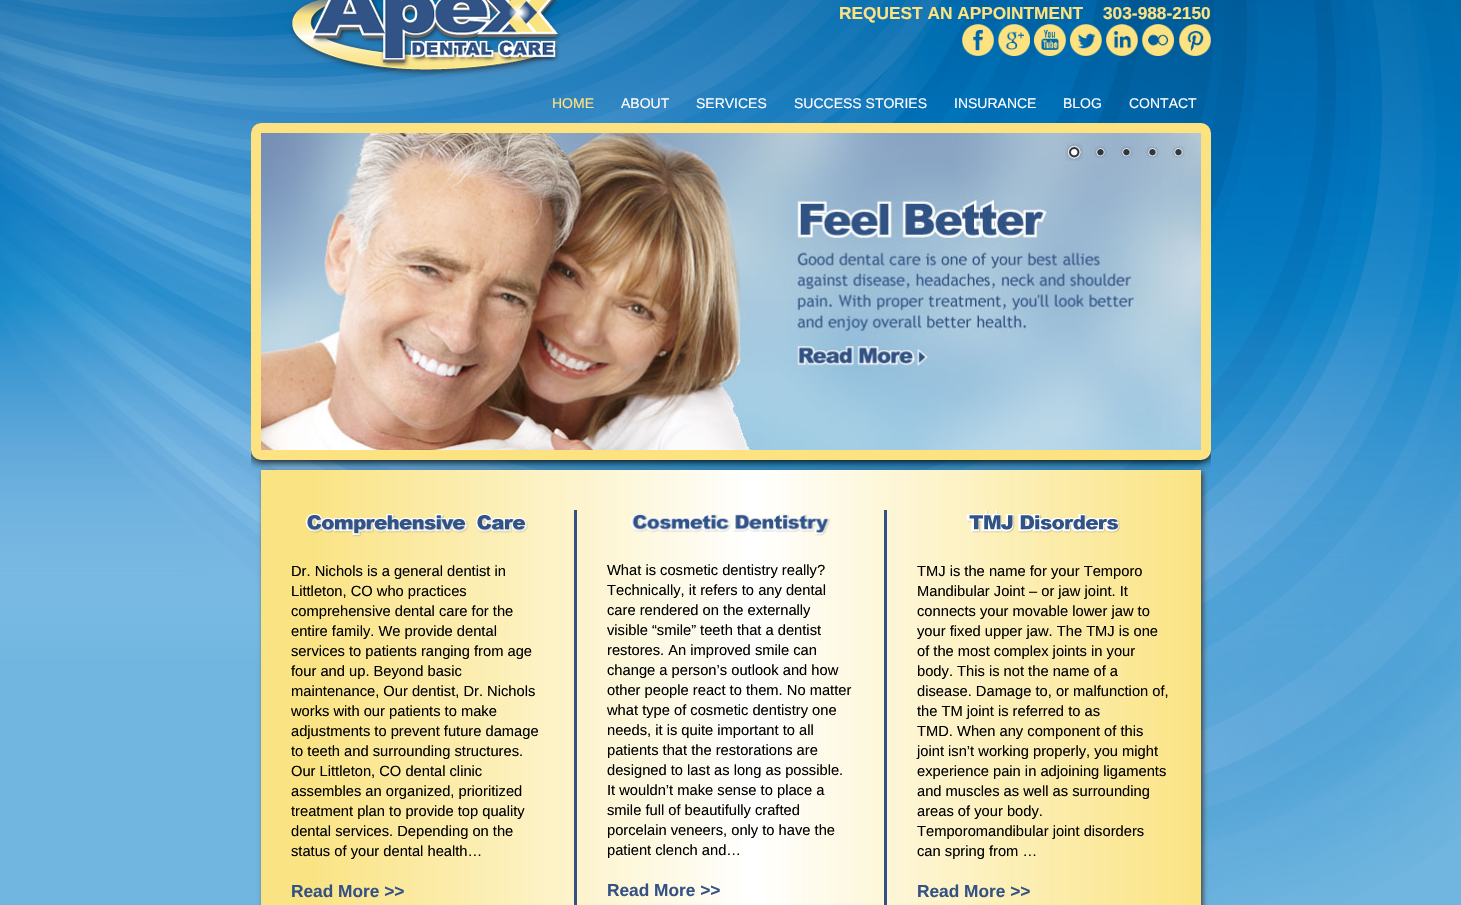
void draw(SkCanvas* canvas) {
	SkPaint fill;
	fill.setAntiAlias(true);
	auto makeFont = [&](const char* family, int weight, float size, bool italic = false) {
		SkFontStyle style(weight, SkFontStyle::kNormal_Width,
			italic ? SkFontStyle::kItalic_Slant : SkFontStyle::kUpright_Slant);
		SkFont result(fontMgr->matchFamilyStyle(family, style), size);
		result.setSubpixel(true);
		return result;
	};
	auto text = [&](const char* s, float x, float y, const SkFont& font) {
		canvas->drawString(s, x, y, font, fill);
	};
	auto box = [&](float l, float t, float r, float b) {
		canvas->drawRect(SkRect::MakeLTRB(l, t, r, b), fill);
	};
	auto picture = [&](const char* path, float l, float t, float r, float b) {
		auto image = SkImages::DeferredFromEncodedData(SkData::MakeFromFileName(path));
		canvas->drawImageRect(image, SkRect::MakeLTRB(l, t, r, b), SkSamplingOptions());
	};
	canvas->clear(0xFF70B6E0);
	picture("image0.png", 0, 0, 1461, 905);
	picture("image1.png", 289, 0, 561, 77);
	picture("image2.png", 962, 24, 994, 56);
	picture("image3.png", 998, 24, 1030, 56);
	picture("image4.png", 1034, 24, 1066, 56);
	picture("image5.png", 1070, 24, 1102, 56);
	picture("image6.png", 1106, 24, 1138, 56);
	picture("image7.png", 1142, 24, 1174, 56);
	picture("image8.png", 1179, 24, 1211, 56);
	fill.setColor(0xFF444444);
	fill.setMaskFilter(SkMaskFilter::MakeBlur(kNormal_SkBlurStyle, 2.5f));
	canvas->drawRect(SkRect::MakeLTRB(263, 472, 1203, 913), fill);
	fill.setMaskFilter(nullptr);
	fill.setColor(0xFFFAE382);
	box(261, 470, 1201, 905);
	picture("image15.png", 317, 470, 1189, 905);
	canvas->save();
	canvas->clipPath(SkPathBuilder().moveTo(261, 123).lineTo(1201, 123).cubicTo(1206.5f, 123, 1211, 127.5f, 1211, 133).lineTo(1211, 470).lineTo(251, 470).lineTo(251, 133).cubicTo(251, 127.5f, 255.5f, 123, 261, 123).close().detach(), true);
	fill.setColor(0xFF000000);
	fill.setMaskFilter(SkMaskFilter::MakeBlur(kNormal_SkBlurStyle, 5));
	canvas->drawRoundRect(SkRect::MakeLTRB(251, 125, 1211, 462), 10, 10, fill);
	fill.setMaskFilter(nullptr);
	canvas->restore();
	fill.setStyle(SkPaint::kStroke_Style);
	fill.setStrokeWidth(10);
	fill.setColor(0xFFFCE281);
	canvas->drawRoundRect(SkRect::MakeLTRB(256, 128, 1206, 455), 5, 5, fill);
	picture("image9.png", 261, 133, 1201, 450);
	picture("image10.png", 1065, 143, 1083, 161);
	picture("image11.png", 1094, 146, 1107, 158);
	picture("image12.png", 1120, 146, 1133, 158);
	picture("image13.png", 1146, 146, 1159, 158);
	picture("image14.png", 1172, 146, 1185, 158);
	picture("image16.png", 305, 513, 528, 537);
	fill.setStyle(SkPaint::kFill_Style);
	fill.setColor(0xFF345284);
	box(884, 510, 887, 905);
	box(574, 510, 577, 905);
	picture("image17.png", 630, 513, 831, 536);
	picture("image18.png", 966, 510, 1120, 533);
	auto font1 = makeFont("Liberation Sans", 700, 17.3f);
	fill.setColor(0xFFFCE281);
	text("REQUEST AN APPOINTMENT", 839, 19, font1);
	text("303-988-2150", 1103, 19, font1);
	auto font2 = makeFont("Liberation Sans", 400, 14);
	text("HOME", 552, 108, font2);
	fill.setColor(0xFFFFFFFF);
	text("ABOUT", 621, 108, font2);
	text("SERVICES", 696, 108, font2);
	text("SUCCESS STORIES", 794, 108, font2);
	text("INSURANCE", 954, 108, font2);
	text("BLOG", 1063, 108, font2);
	text("CONTACT", 1129, 108, font2);
	auto font3 = makeFont("Liberation Sans", 400, 14.7f);
	fill.setColor(0xFF000000);
	text("Dr. Nichols is a general dentist in", 291, 576, font3);
	text("Littleton, CO who practices", 291, 596, font3);
	text("comprehensive dental care for the", 291, 616, font3);
	text("entire family. We provide dental", 291, 636, font3);
	text("services to patients ranging from age", 291, 656, font3);
	text("four and up. Beyond basic", 291, 676, font3);
	text("maintenance, Our dentist, Dr. Nichols", 291, 696, font3);
	text("works with our patients to make", 291, 716, font3);
	text("adjustments to prevent future damage", 291, 736, font3);
	text("to teeth and surrounding structures.", 291, 756, font3);
	text("Our Littleton, CO dental clinic", 291, 776, font3);
	text("assembles an organized, prioritized", 291, 796, font3);
	text("treatment plan to provide top quality", 291, 816, font3);
	text("dental services. Depending on the", 291, 836, font3);
	text("status of your dental health…", 291, 856, font3);
	fill.setColor(0xFF345284);
	text("Read More >>", 291, 897, font1);
	fill.setColor(0xFF000000);
	text("What is cosmetic dentistry really?", 607, 575, font3);
	text("Technically, it refers to any dental", 607, 595, font3);
	text("care rendered on the externally", 607, 615, font3);
	text("visible “smile” teeth that a dentist", 607, 635, font3);
	text("restores. An improved smile can", 607, 655, font3);
	text("change a person’s outlook and how", 607, 675, font3);
	text("other people react to them. No matter", 607, 695, font3);
	text("what type of cosmetic dentistry one", 607, 715, font3);
	text("needs, it is quite important to all", 607, 735, font3);
	text("patients that the restorations are", 607, 755, font3);
	text("designed to last as long as possible.", 607, 775, font3);
	text("It wouldn’t make sense to place a", 607, 795, font3);
	text("smile full of beautifully crafted", 607, 815, font3);
	text("porcelain veneers, only to have the", 607, 835, font3);
	text("patient clench and…", 607, 855, font3);
	fill.setColor(0xFF345284);
	text("Read More >>", 607, 896, font1);
	fill.setColor(0xFF000000);
	text("TMJ is the name for your Temporo", 917, 576, font3);
	text("Mandibular Joint – or jaw joint. It", 917, 596, font3);
	text("connects your movable lower jaw to", 917, 616, font3);
	text("your fixed upper jaw. The TMJ is one", 917, 636, font3);
	text("of the most complex joints in your", 917, 656, font3);
	text("body. This is not the name of a", 917, 676, font3);
	text("disease. Damage to, or malfunction of,", 917, 696, font3);
	text("the TM joint is referred to as", 917, 716, font3);
	text("TMD. When any component of this", 917, 736, font3);
	text("joint isn’t working properly, you might", 917, 756, font3);
	text("experience pain in adjoining ligaments", 917, 776, font3);
	text("and muscles as well as surrounding", 917, 796, font3);
	text("areas of your body.", 917, 816, font3);
	text("Temporomandibular joint disorders", 917, 836, font3);
	text("can spring from …", 917, 856, font3);
	fill.setColor(0xFF345284);
	text("Read More >>", 917, 897, font1);
}
